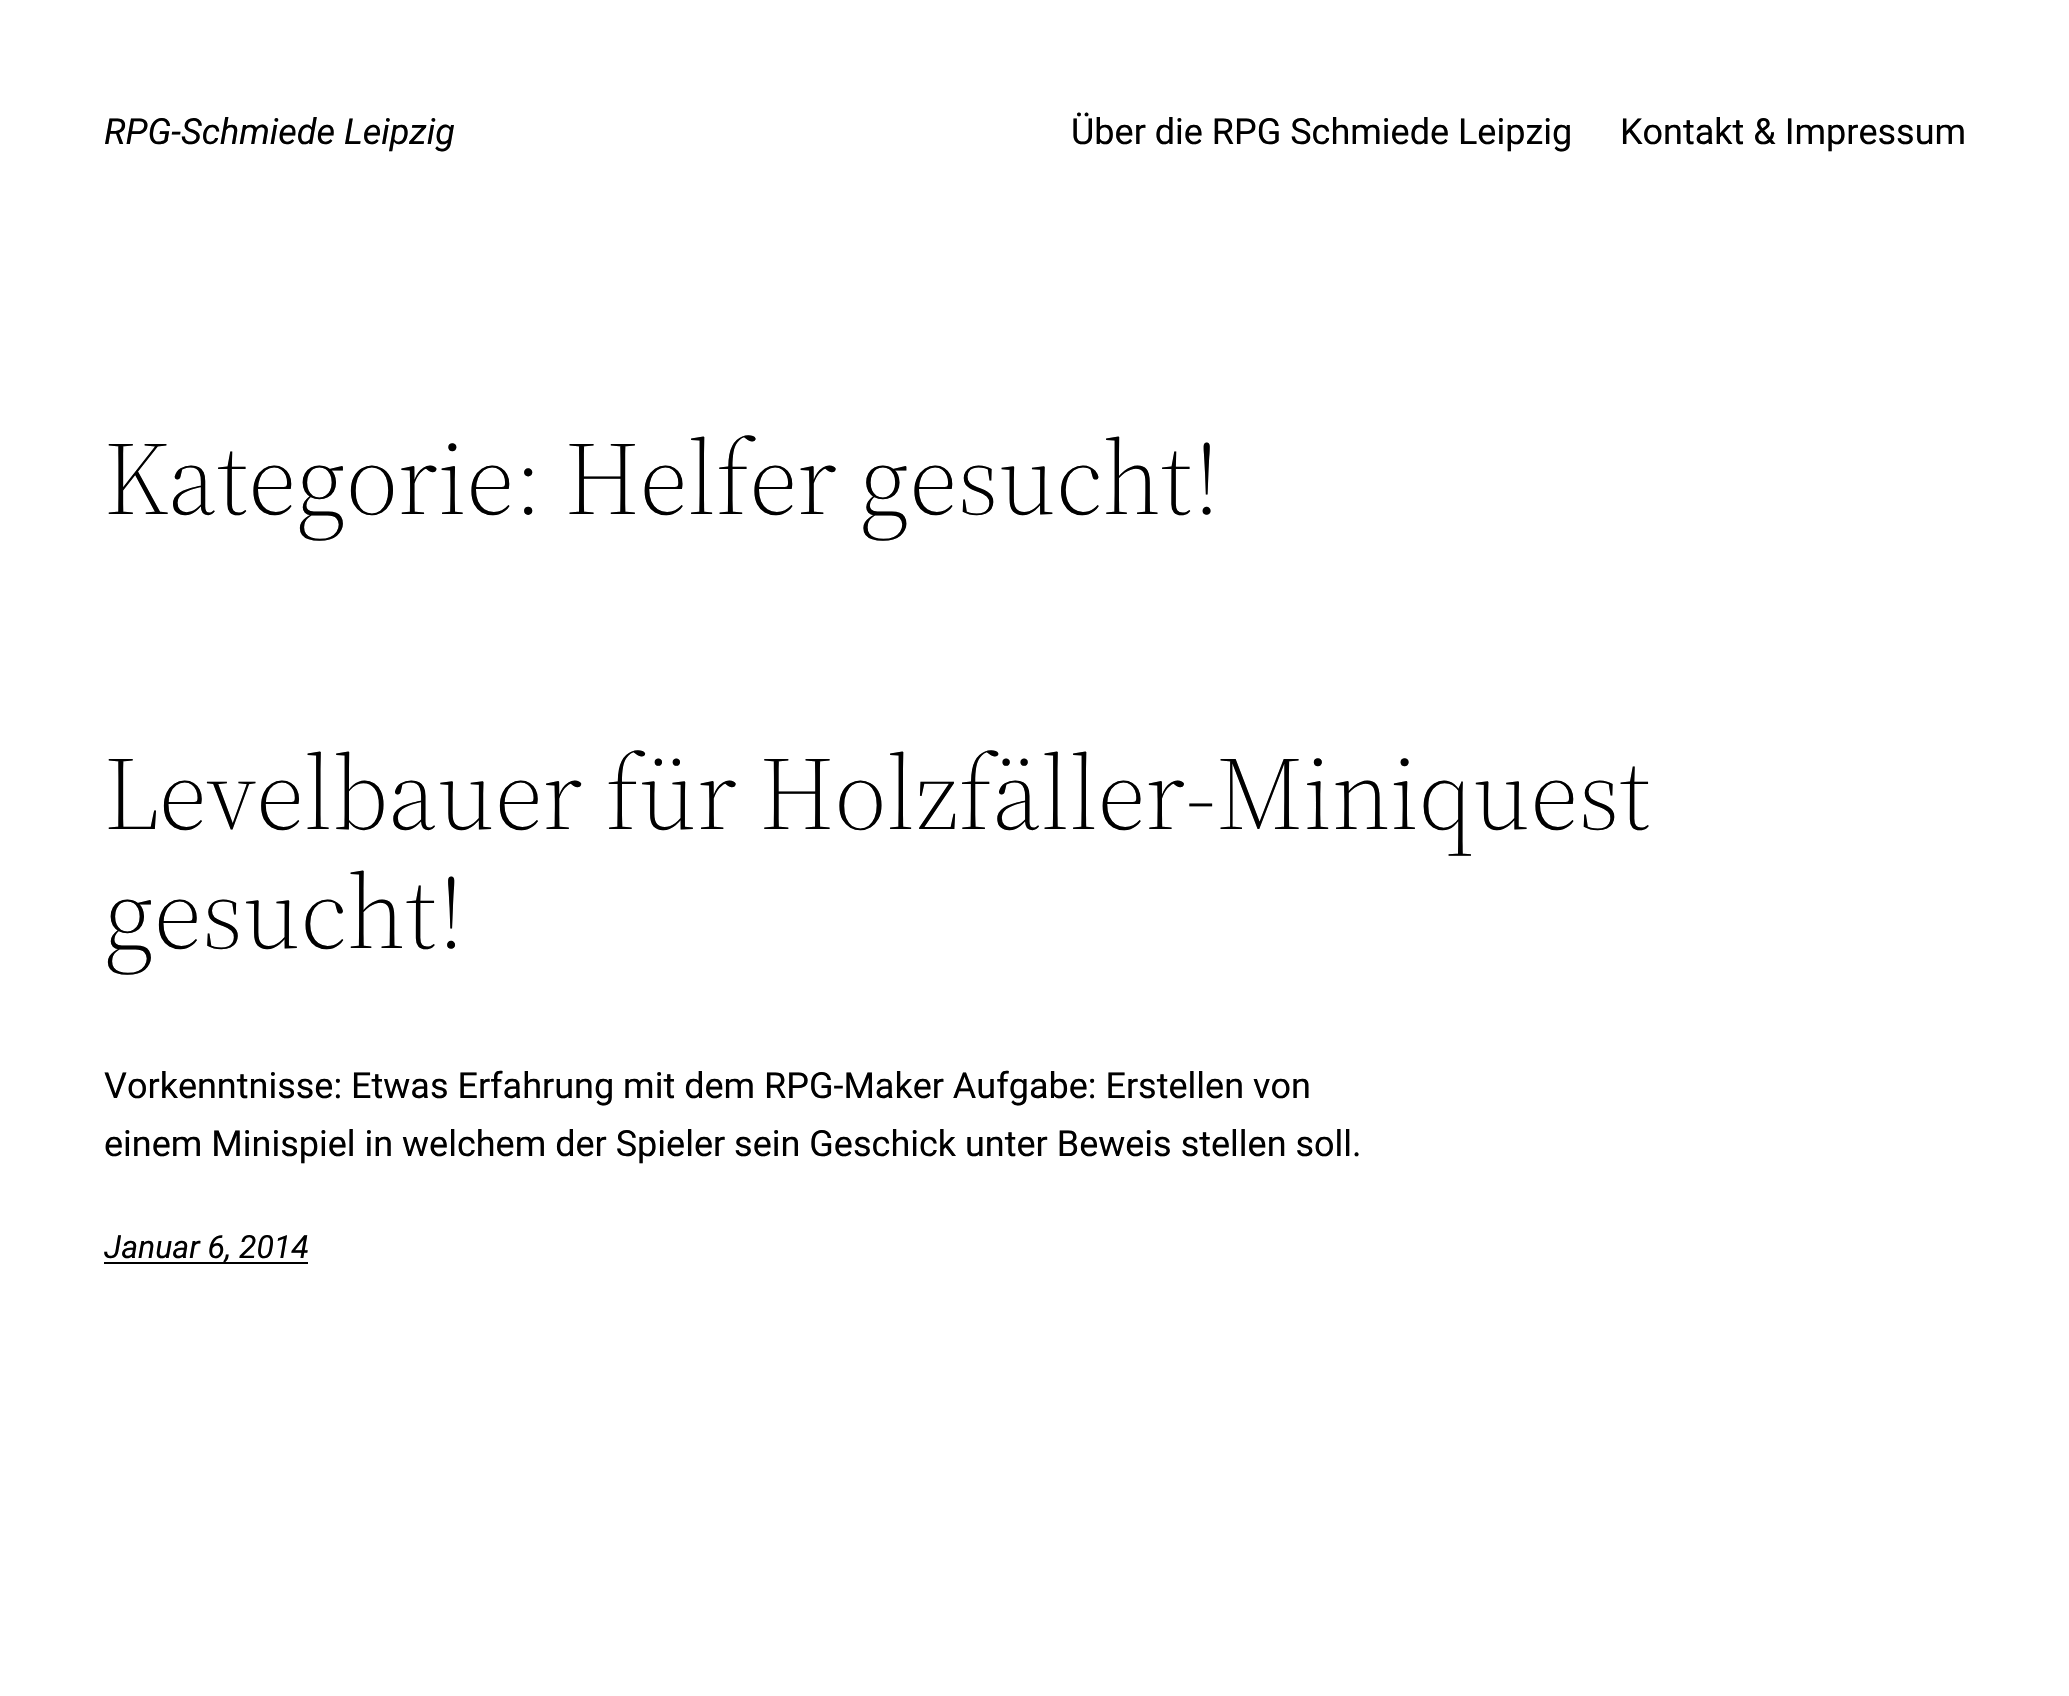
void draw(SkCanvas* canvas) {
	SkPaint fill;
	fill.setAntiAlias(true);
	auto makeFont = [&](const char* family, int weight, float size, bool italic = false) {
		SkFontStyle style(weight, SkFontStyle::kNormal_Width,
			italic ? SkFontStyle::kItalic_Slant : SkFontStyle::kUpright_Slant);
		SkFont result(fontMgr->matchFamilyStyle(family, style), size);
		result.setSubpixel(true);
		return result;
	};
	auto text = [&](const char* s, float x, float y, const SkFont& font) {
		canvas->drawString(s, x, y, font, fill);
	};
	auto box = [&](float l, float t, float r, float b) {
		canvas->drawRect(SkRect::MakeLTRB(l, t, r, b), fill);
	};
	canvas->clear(0xFFFFFFFF);
	fill.setColor(0xFF000000);
	box(104, 1262, 308, 1264);
	auto font1 = makeFont("Roboto", 400, 36, true);
	text("RPG-Schmiede Leipzig", 104, 144, font1);
	auto font2 = makeFont("Roboto", 400, 36);
	text("Über die RPG Schmiede Leipzig", 1071, 144, font2);
	text("Kontakt & Impressum", 1620, 144, font2);
	auto font3 = makeFont("Source Serif 4", 300, 104);
	text("Kategorie: Helfer gesucht!", 104, 514, font3);
	text("Levelbauer für Holzfäller-Miniquest", 104, 829, font3);
	text("gesucht!", 104, 948, font3);
	text("Vorkenntnisse: Etwas Erfahrung mit dem RPG-Maker Aufgabe: Erstellen von", 104, 1098, font2);
	text("einem Minispiel in welchem der Spieler sein Geschick unter Beweis stellen soll.", 104, 1156, font2);
	auto font4 = makeFont("Roboto", 400, 32, true);
	text("Januar 6, 2014", 104, 1258, font4);
}
